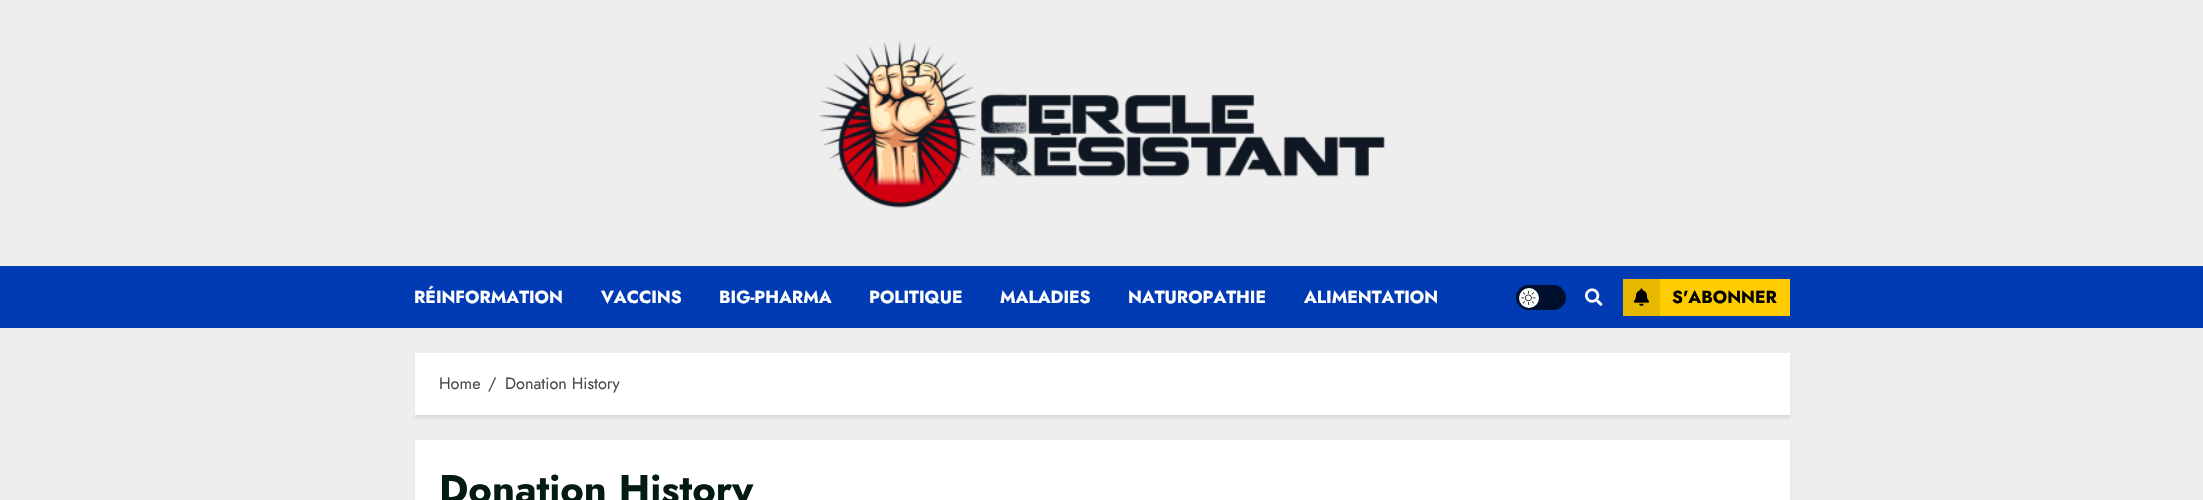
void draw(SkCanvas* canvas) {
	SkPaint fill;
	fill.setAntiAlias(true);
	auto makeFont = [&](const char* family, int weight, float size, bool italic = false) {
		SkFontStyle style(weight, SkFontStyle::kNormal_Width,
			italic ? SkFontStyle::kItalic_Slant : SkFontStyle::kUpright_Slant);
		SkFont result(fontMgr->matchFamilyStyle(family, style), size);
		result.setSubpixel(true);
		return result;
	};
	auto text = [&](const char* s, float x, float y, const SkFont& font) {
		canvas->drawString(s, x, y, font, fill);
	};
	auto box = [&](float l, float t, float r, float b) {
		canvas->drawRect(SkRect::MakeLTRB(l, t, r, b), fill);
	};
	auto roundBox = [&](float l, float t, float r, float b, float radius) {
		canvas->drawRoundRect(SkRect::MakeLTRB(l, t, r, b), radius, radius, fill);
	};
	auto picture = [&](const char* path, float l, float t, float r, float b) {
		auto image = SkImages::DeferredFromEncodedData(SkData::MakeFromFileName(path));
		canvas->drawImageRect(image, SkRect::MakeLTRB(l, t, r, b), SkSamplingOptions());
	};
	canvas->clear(0xFFEEEEEE);
	picture("image0.png", 818, 41, 1386, 208);
	fill.setColor(0xFF003BB3);
	box(0, 266, 2203, 328);
	fill.setColor(0xFF000F2D);
	roundBox(1516, 285, 1566, 310, 12.5f);
	fill.setColor(0xFFFFFFFF);
	canvas->drawCircle(1529, 298, 10, fill);
	picture("image1.png", 1521, 290, 1536, 305);
	picture("image2.png", 1585, 288, 1603, 306);
	fill.setColor(0xFFFFCC00);
	box(1660, 279, 1790, 316);
	fill.setColor(0xFFE6B800);
	box(1623, 279, 1660, 316);
	picture("image3.png", 1633, 288, 1650, 306);
	fill.setColor(0x14000000);
	fill.setMaskFilter(SkMaskFilter::MakeBlur(kNormal_SkBlurStyle, 1));
	canvas->drawRect(SkRect::MakeLTRB(415, 355, 1790, 418), fill);
	fill.setMaskFilter(nullptr);
	fill.setColor(0xFFFFFFFF);
	box(415, 353, 1790, 415);
	fill.setColor(0x14000000);
	fill.setMaskFilter(SkMaskFilter::MakeBlur(kNormal_SkBlurStyle, 1));
	canvas->drawRect(SkRect::MakeLTRB(415, 443, 1790, 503), fill);
	fill.setMaskFilter(nullptr);
	fill.setColor(0xFFFFFFFF);
	box(415, 440, 1790, 500);
	auto font1 = makeFont("Jost", 700, 17.5f);
	text("RÉINFORMATION", 414, 303, font1);
	text("VACCINS", 601, 303, font1);
	text("BIG-PHARMA", 719, 303, font1);
	text("POLITIQUE", 869, 303, font1);
	text("MALADIES", 1000, 303, font1);
	text("NATUROPATHIE", 1128, 303, font1);
	text("ALIMENTATION", 1304, 303, font1);
	fill.setColor(0xFF000000);
	text("S'ABONNER", 1672, 303, font1);
	auto font2 = makeFont("Jost", 400, 16.25f);
	fill.setColor(0xFF4A4A4A);
	text("Home", 439, 389, font2);
	text("/", 488, 389, font2);
	text("Donation History", 505, 389, font2);
	auto font3 = makeFont("Jost", 700, 40);
	fill.setColor(0xFF031B11);
	text("Donation History", 439, 503, font3);
}
